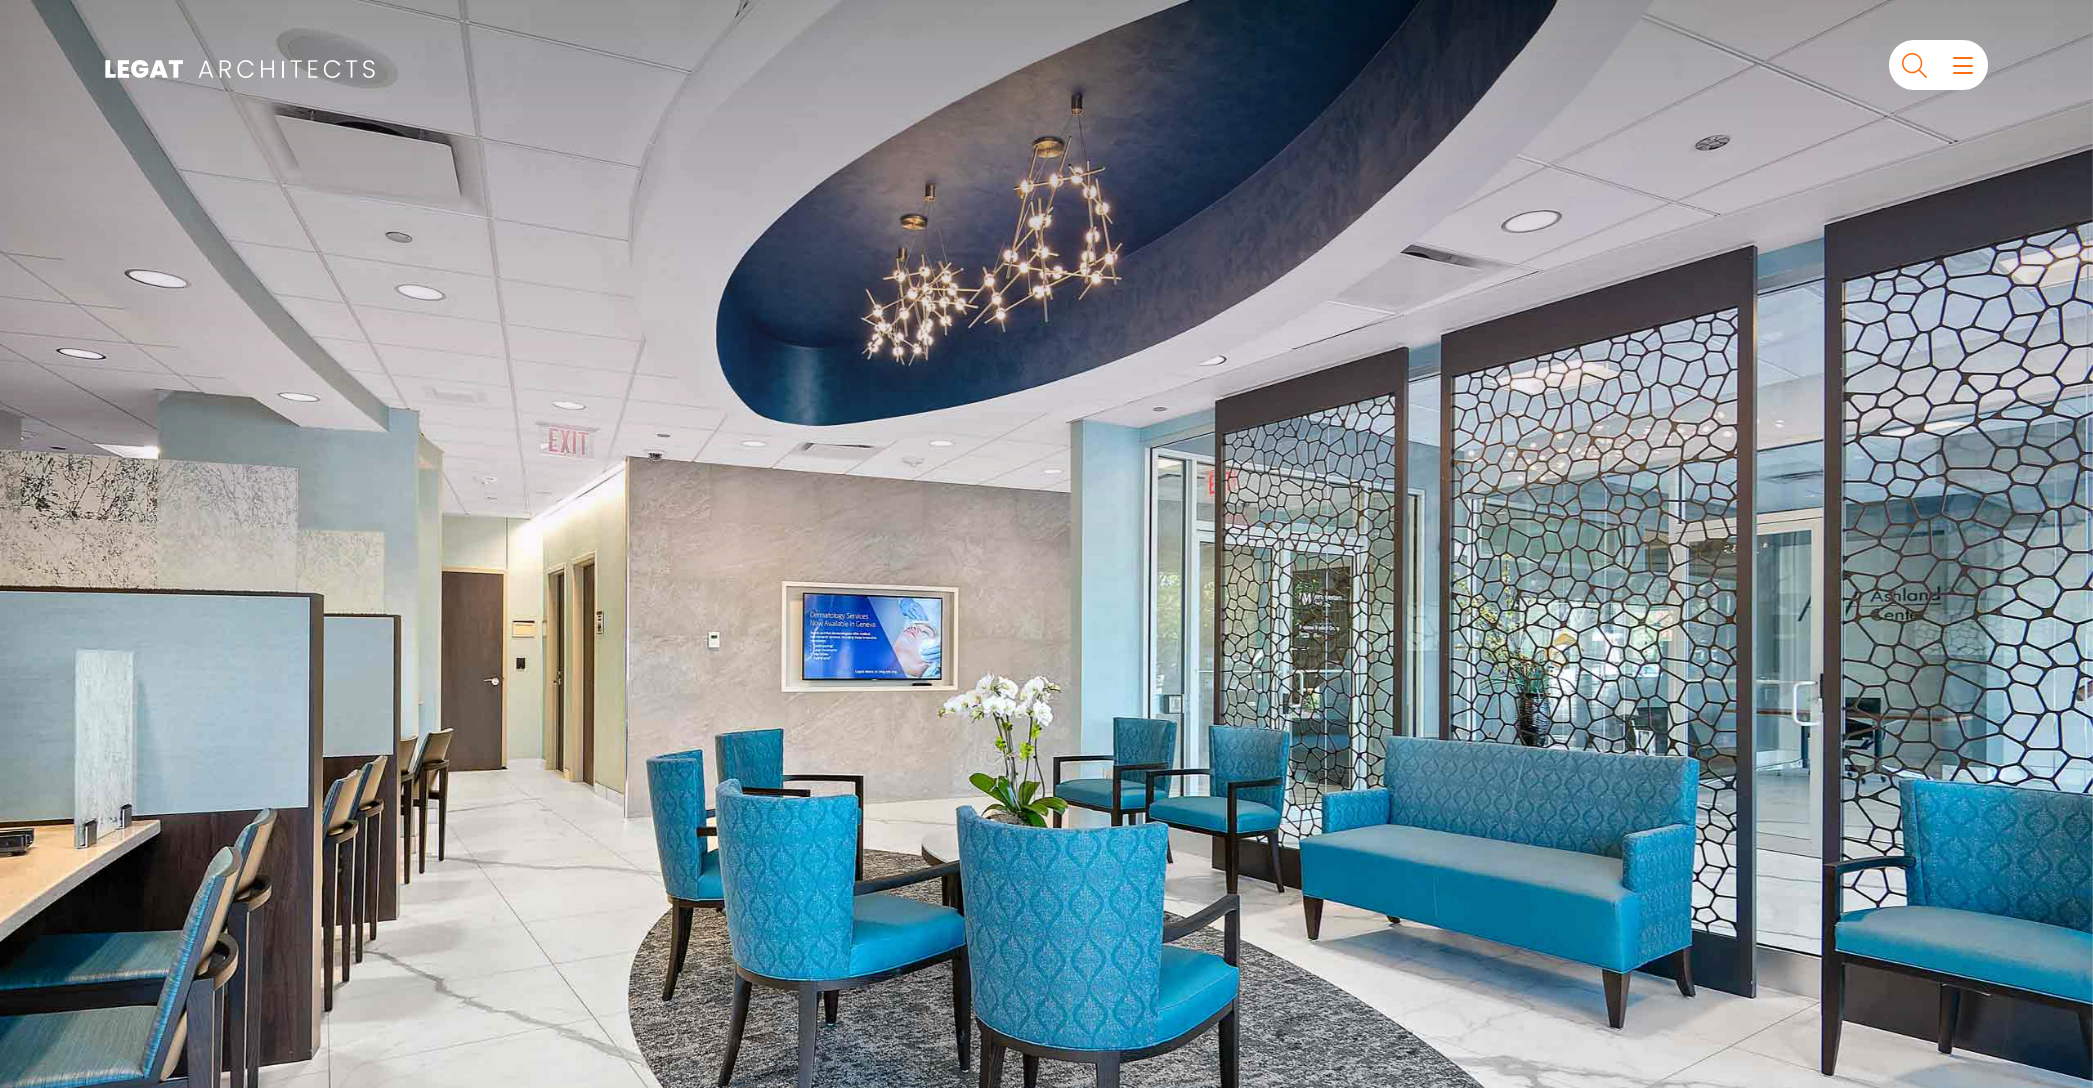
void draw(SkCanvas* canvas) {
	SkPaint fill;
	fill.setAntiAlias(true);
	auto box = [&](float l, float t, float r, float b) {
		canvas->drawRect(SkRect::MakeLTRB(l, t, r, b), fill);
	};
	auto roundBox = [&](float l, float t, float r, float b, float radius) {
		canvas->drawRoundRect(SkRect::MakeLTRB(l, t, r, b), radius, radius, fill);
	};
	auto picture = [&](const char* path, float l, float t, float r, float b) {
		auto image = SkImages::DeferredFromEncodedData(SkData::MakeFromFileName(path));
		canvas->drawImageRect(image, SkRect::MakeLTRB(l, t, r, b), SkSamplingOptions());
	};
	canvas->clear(0xFFFFFFFF);
	picture("image0.png", 0, 0, 2093, 1088);
	{
		const SkColor colors[] = {0x4D000000, 0x05CDA5F2};
		const float stops[] = {0, 0.46f};
		const SkPoint ends[] = {{1047, 0}, {1047, 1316}};
		fill.setShader(SkGradientShader::MakeLinear(ends, colors, stops, 2, SkTileMode::kClamp));
		fill.setAlpha(255);
	}
	box(0, 0, 2093, 602);
	picture("image1.png", 105, 60, 375, 78);
	fill.setShader(nullptr);
	fill.setColor(0xFFFFFFFF);
	canvas->drawPath(SkPathBuilder().moveTo(1914, 40).lineTo(1939, 40).lineTo(1939, 90).lineTo(1914, 90).cubicTo(1900, 90, 1889, 79, 1889, 65).cubicTo(1889, 51, 1900, 40, 1914, 40).close().detach(), fill);
	picture("image2.png", 1902, 53, 1927, 78);
	canvas->drawPath(SkPathBuilder().moveTo(1938, 40).lineTo(1963, 40).cubicTo(1977, 40, 1988, 51, 1988, 65).cubicTo(1988, 79, 1977, 90, 1963, 90).lineTo(1938, 90).close().detach(), fill);
	fill.setColor(0xFFFF6C0E);
	roundBox(1953, 57, 1973, 59, 1);
	roundBox(1953, 65, 1973, 67, 1);
	roundBox(1953, 72, 1973, 74, 1);
}
